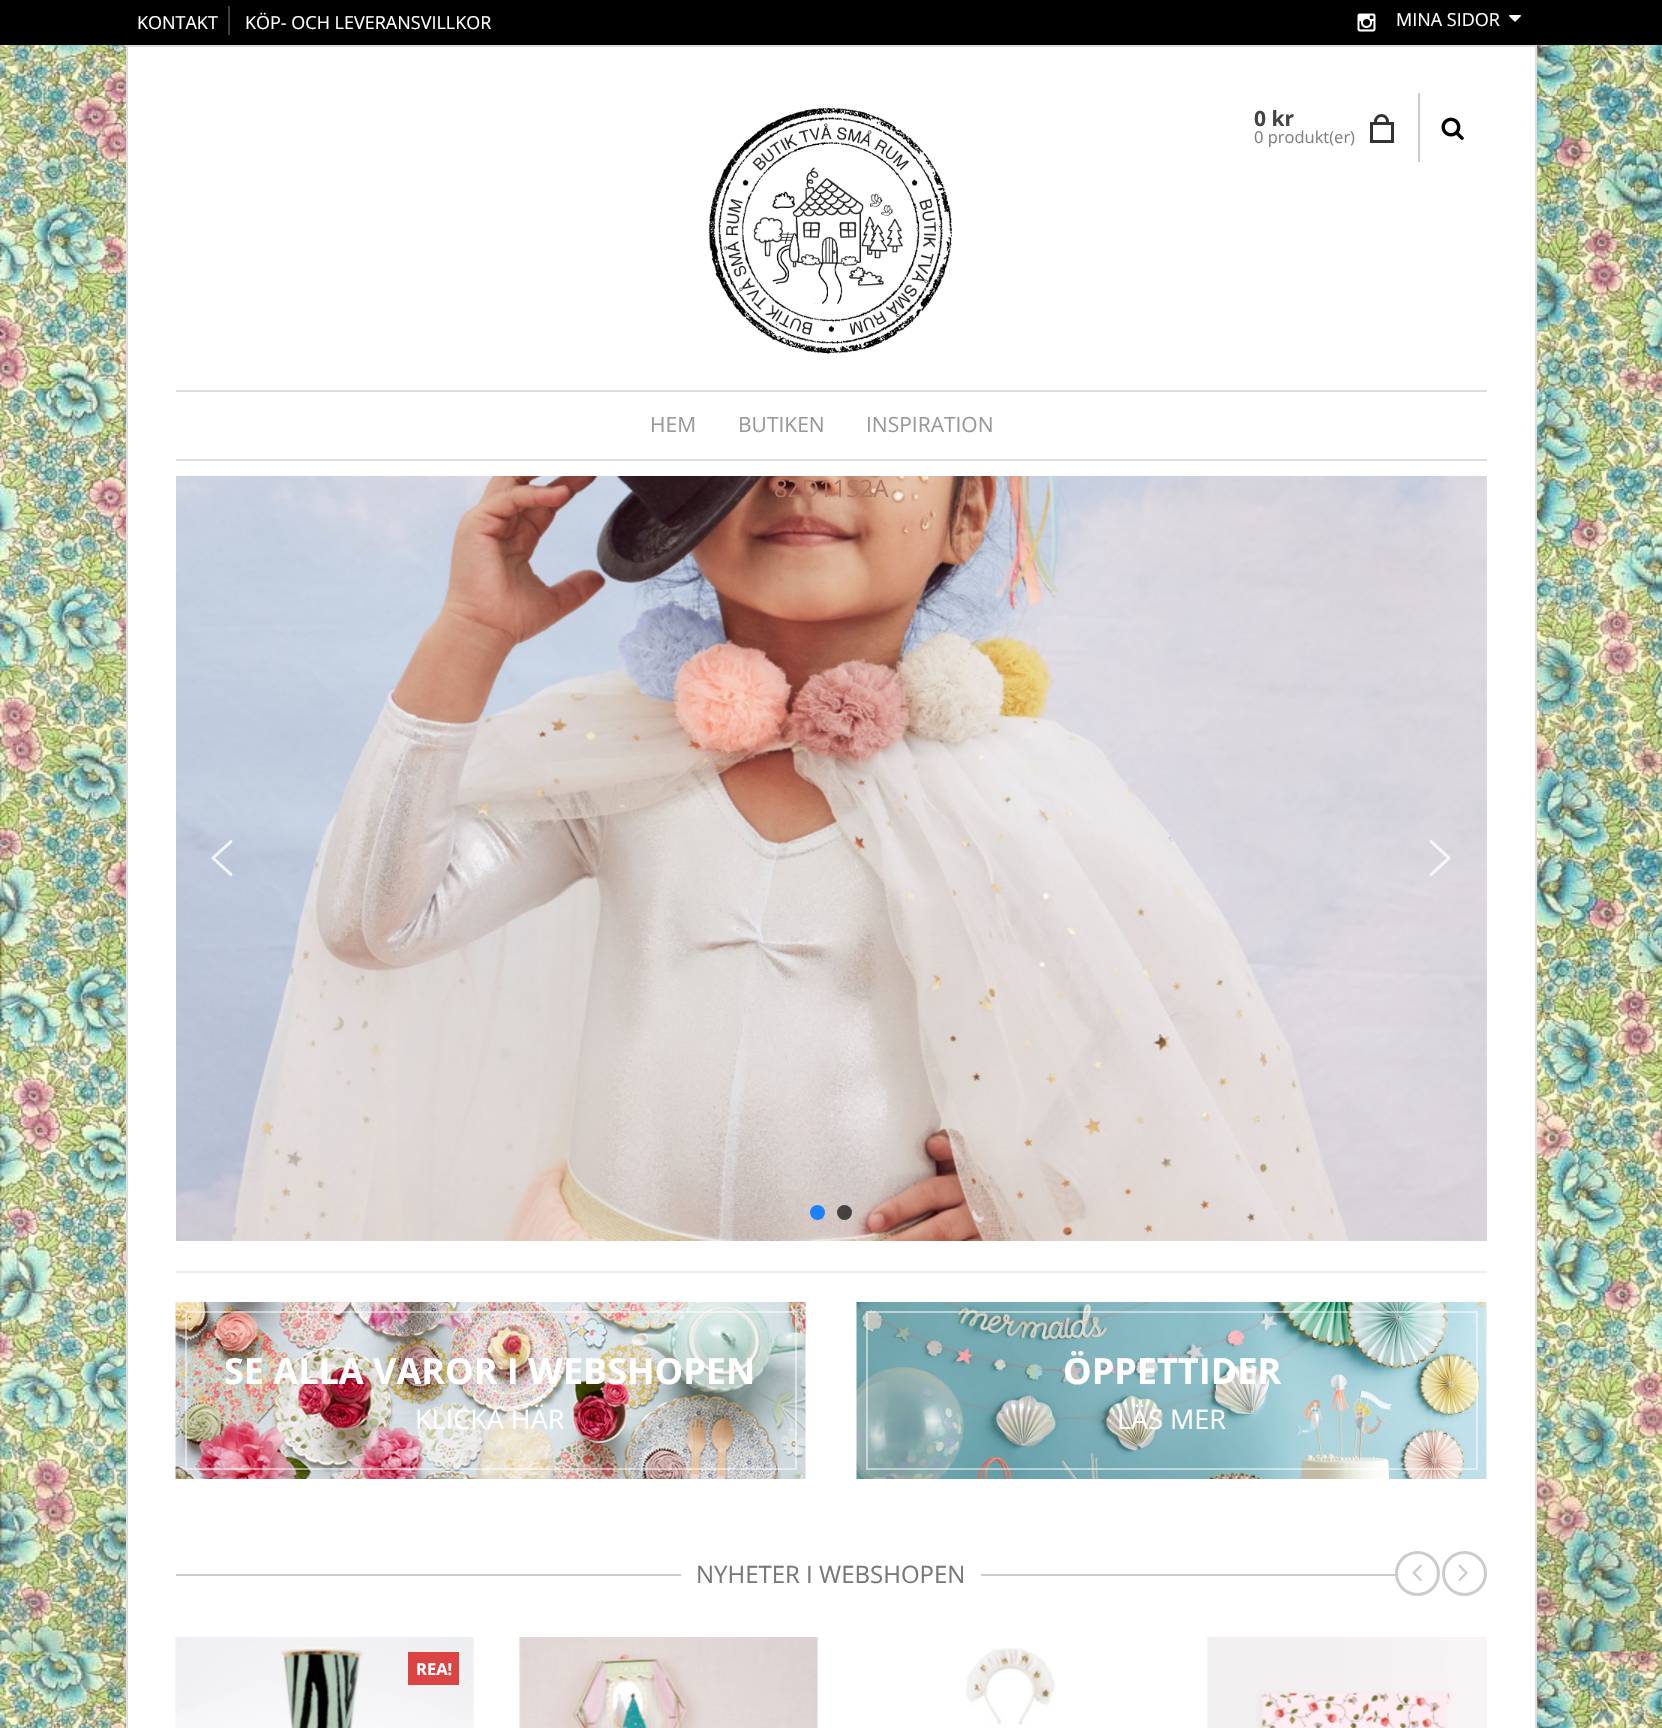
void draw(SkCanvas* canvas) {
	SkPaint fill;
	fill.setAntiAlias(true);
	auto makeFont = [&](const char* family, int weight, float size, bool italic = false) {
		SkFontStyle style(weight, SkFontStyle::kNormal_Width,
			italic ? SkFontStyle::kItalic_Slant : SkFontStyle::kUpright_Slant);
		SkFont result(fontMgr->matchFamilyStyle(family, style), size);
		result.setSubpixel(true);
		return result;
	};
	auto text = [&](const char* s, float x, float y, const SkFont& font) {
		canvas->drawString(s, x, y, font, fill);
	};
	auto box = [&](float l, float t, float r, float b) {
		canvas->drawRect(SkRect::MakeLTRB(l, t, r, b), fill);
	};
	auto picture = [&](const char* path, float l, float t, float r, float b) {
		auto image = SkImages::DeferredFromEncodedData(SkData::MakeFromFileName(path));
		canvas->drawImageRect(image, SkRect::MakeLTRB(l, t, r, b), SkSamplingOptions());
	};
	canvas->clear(0xFFFFFFFF);
	picture("image0.png", 0, 45, 1662, 1728);
	fill.setColor(0xFF000000);
	box(0, 0, 1662, 45);
	fill.setColor(0xFF404040);
	box(228, 6, 230, 35);
	picture("image1.png", 1357, 13, 1376, 32);
	picture("image2.png", 1509, 15, 1521, 22);
	fill.setColor(0xFFDDDDDD);
	box(126, 45, 1536, 47);
	box(1535, 45, 1537, 461);
	box(126, 45, 128, 461);
	fill.setColor(0xFFFFFFFF);
	box(128, 47, 1535, 1728);
	picture("image3.png", 708, 108, 952, 354);
	fill.setStyle(SkPaint::kStroke_Style);
	fill.setStrokeWidth(3);
	fill.setColor(0xFF333333);
	canvas->drawCircle(1381.5f, 121.5f, 6, fill);
	fill.setStyle(SkPaint::kFill_Style);
	fill.setColor(0xFFFFFFFF);
	box(1375, 125, 1388, 129);
	fill.setStyle(SkPaint::kStroke_Style);
	fill.setColor(0xFF333333);
	canvas->drawRect(SkRect::MakeLTRB(1371.5f, 123.5f, 1392.5f, 141.5f), fill);
	fill.setStyle(SkPaint::kFill_Style);
	fill.setColor(0xFFCCCCCC);
	box(1418, 93, 1420, 162);
	picture("image4.png", 1441, 117, 1464, 140);
	fill.setColor(0xFFDDDDDD);
	box(176, 390, 1487, 392);
	box(176, 459, 1487, 461);
	box(1535, 461, 1537, 1728);
	box(126, 461, 128, 1728);
	picture("image5.png", 176, 476, 1487, 1241);
	picture("image6.png", 211, 840, 233, 876);
	picture("image7.png", 1429, 840, 1451, 876);
	fill.setColor(0xFF1D81F9);
	canvas->drawCircle(817.5f, 1212.5f, 7.5f, fill);
	fill.setColor(0xAB000000);
	canvas->drawCircle(844.5f, 1212.5f, 7.5f, fill);
	fill.setColor(0xFFEDEDED);
	box(176, 1271, 1487, 1273);
	picture("image8.png", 175, 1302, 806, 1479);
	fill.setStyle(SkPaint::kStroke_Style);
	fill.setStrokeWidth(2);
	fill.setColor(0x80FFFFFF);
	canvas->drawRect(SkRect::MakeLTRB(186, 1312, 796, 1469), fill);
	picture("image9.png", 856, 1302, 1487, 1479);
	canvas->drawRect(SkRect::MakeLTRB(867, 1312, 1477, 1469), fill);
	fill.setStyle(SkPaint::kFill_Style);
	fill.setColor(0xFFCCCCCC);
	box(176, 1574, 1396, 1576);
	fill.setColor(0xFFFFFFFF);
	box(681, 1574, 981, 1576);
	fill.setStyle(SkPaint::kStroke_Style);
	fill.setStrokeWidth(3);
	fill.setColor(0xFFCCCCCC);
	canvas->drawCircle(1417.5f, 1573.5f, 21, fill);
	picture("image10.png", 1412, 1564, 1422, 1582);
	canvas->drawCircle(1464.5f, 1573.5f, 21, fill);
	picture("image11.png", 1458, 1564, 1468, 1582);
	picture("image12.png", 175, 1637, 474, 1728);
	fill.setStyle(SkPaint::kFill_Style);
	fill.setColor(0xFFDC4343);
	box(408, 1652, 459, 1685);
	picture("image13.png", 519, 1637, 819, 1728);
	picture("image14.png", 966, 1648, 1055, 1728);
	picture("image15.png", 1207, 1637, 1487, 1728);
	auto font1 = makeFont("Open Sans", 400, 18);
	fill.setColor(0xFFFFFFFF);
	text("KONTAKT", 137, 29, font1);
	text("KÖP- OCH LEVERANSVILLKOR", 245, 29, font1);
	text("MINA SIDOR", 1396, 26, font1);
	auto font2 = makeFont("Open Sans", 700, 21);
	fill.setColor(0xFF444444);
	text("0 kr", 1254, 126, font2);
	auto font3 = makeFont("Open Sans", 400, 16.5f);
	fill.setColor(0xFF808080);
	text("0 produkt(er)", 1254, 143, font3);
	auto font4 = makeFont("Open Sans", 400, 21);
	fill.setColor(0xFF999999);
	text("HEM", 650, 432, font4);
	text("BUTIKEN", 738, 432, font4);
	text("INSPIRATION", 866, 432, font4);
	auto font5 = makeFont("Open Sans", 400, 24);
	fill.setColor(0xFFAE7763);
	text("8ZD11S2A", 774, 497, font5);
	auto font6 = makeFont("Open Sans", 700, 36);
	fill.setColor(0xFFFFFFFF);
	text("SE ALLA VAROR I WEBSHOPEN", 224, 1384, font6);
	auto font7 = makeFont("Open Sans", 400, 27);
	text("KLICKA HÄR", 415, 1429, font7);
	text("ÖPPETTIDER", 1063, 1384, font6);
	text("LÄS MER", 1117, 1429, font7);
	fill.setColor(0xFF777777);
	text("NYHETER I WEBSHOPEN", 696, 1583, font5);
	auto font8 = makeFont("Open Sans", 700, 16.5f);
	fill.setColor(0xFFFFFFFF);
	text("REA!", 416, 1675, font8);
}
